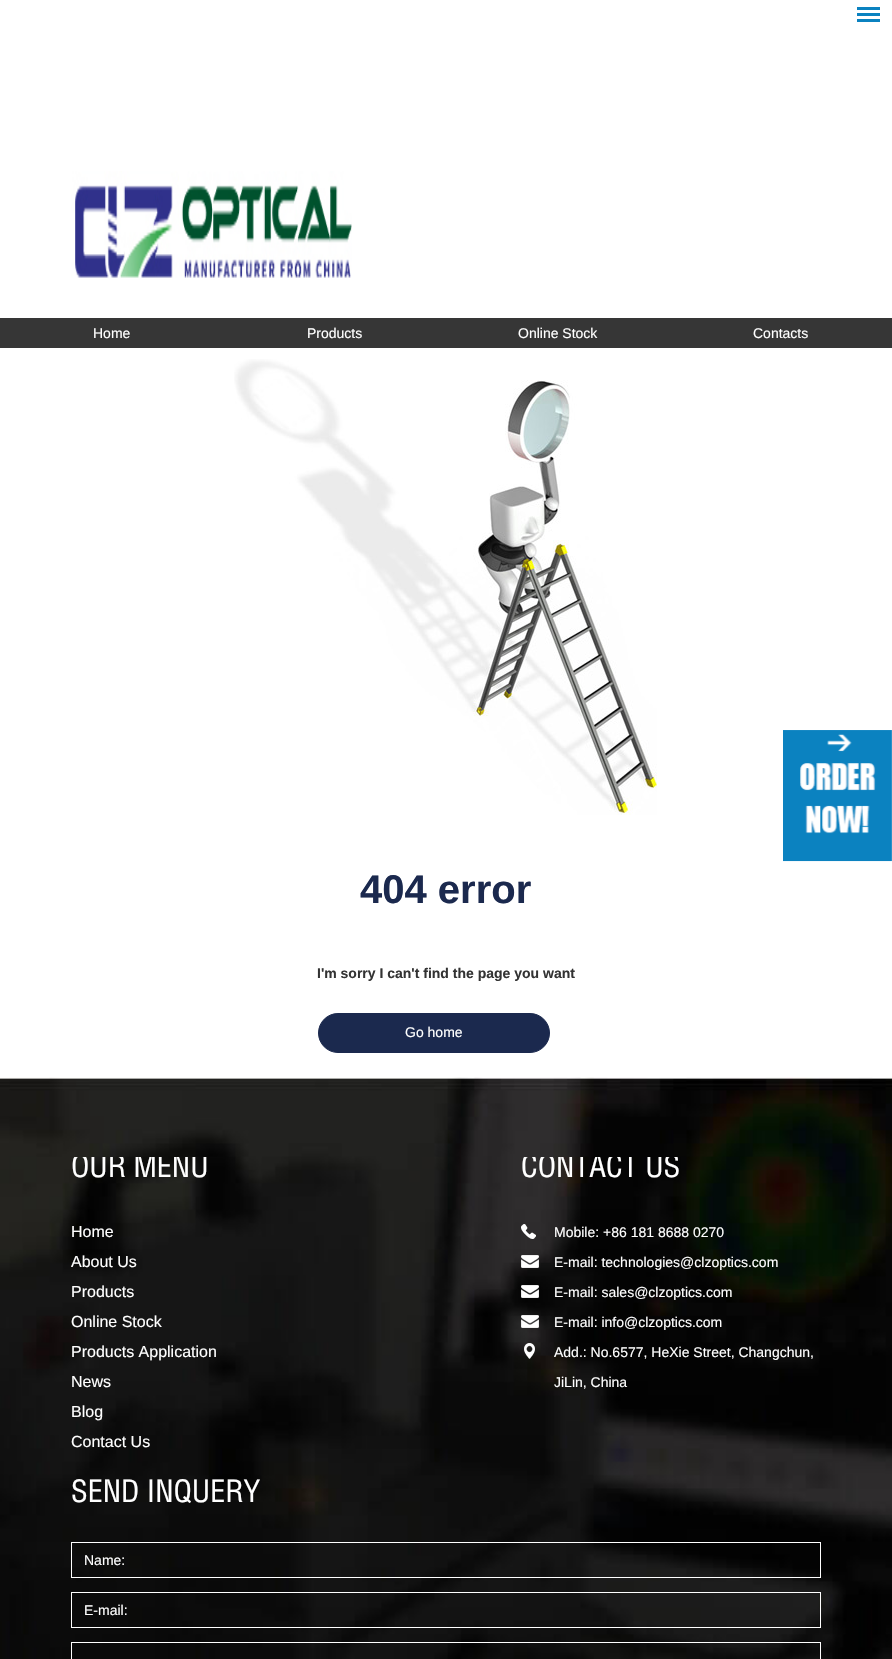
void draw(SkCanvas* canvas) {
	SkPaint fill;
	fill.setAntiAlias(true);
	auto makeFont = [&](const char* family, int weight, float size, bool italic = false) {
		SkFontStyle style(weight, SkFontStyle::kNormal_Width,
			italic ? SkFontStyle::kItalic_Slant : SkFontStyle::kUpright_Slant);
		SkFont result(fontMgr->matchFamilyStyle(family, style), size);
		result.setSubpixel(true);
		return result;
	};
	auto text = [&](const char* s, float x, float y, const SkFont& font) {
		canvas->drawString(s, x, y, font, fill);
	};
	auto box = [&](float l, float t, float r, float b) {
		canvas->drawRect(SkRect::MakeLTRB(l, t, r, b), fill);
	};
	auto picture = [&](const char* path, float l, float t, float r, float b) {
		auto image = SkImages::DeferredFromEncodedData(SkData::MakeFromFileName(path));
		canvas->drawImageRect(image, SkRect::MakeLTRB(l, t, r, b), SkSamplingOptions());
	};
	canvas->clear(0xFFFFFFFF);
	fill.setColor(0xFF0B82C0);
	box(857, 7, 880, 10);
	box(857, 13, 880, 16);
	box(857, 19, 880, 22);
	picture("image0.png", 71, 171, 352, 278);
	fill.setColor(0xFF363636);
	box(0, 318, 892, 348);
	picture("image1.png", 783, 730, 892, 862);
	picture("image2.png", 234, 359, 657, 815);
	fill.setColor(0xFF1B294E);
	canvas->drawRoundRect(SkRect::MakeLTRB(318.5f, 1013.5f, 549.5f, 1052.5f), 19.5f, 19.5f, fill);
	fill.setStyle(SkPaint::kStroke_Style);
	fill.setStrokeWidth(1);
	canvas->drawRoundRect(SkRect::MakeLTRB(318.5f, 1013.5f, 549.5f, 1052.5f), 19.5f, 19.5f, fill);
	picture("image3.png", 0, 1077, 892, 1659);
	picture("image4.png", 521, 1224, 536, 1239);
	picture("image5.png", 521, 1255, 539, 1268);
	picture("image6.png", 521, 1285, 539, 1298);
	picture("image7.png", 521, 1315, 539, 1328);
	picture("image8.png", 524, 1343, 535, 1359);
	fill.setColor(0xFFFFFFFF);
	canvas->drawRect(SkRect::MakeLTRB(71.5f, 1542.5f, 820.5f, 1577.5f), fill);
	canvas->drawRect(SkRect::MakeLTRB(71.5f, 1592.5f, 820.5f, 1627.5f), fill);
	canvas->drawRect(SkRect::MakeLTRB(71.5f, 1642.5f, 820.5f, 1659.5f), fill);
	auto font1 = makeFont("Liberation Sans", 400, 14);
	fill.setStyle(SkPaint::kFill_Style);
	text("Home", 93, 338, font1);
	text("Products", 307, 338, font1);
	text("Online Stock", 518, 338, font1);
	text("Contacts", 753, 338, font1);
	auto font2 = makeFont("Liberation Sans", 700, 40);
	fill.setColor(0xFF1B294E);
	text("404 error", 360, 903, font2);
	auto font3 = makeFont("Liberation Sans", 700, 14);
	fill.setColor(0xFF333333);
	text("I'm sorry I can't find the page you want", 317, 978, font3);
	fill.setColor(0xFFFFFFFF);
	text("Go home", 405, 1037, font1);
	canvas->save();
	canvas->clipRect(SkRect::MakeLTRB(71, 1157, 821, 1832));
	auto font4 = makeFont("Helvetica", 400, 30);
	text("OUR MENU", 71, 1177, font4);
	canvas->restore();
	auto font5 = makeFont("Liberation Sans", 400, 16);
	text("Home", 71, 1237, font5);
	text("About Us", 71, 1267, font5);
	text("Products", 71, 1297, font5);
	text("Online Stock", 71, 1327, font5);
	text("Products Application", 71, 1357, font5);
	text("News", 71, 1387, font5);
	text("Blog", 71, 1417, font5);
	text("Contact Us", 71, 1447, font5);
	canvas->save();
	canvas->clipRect(SkRect::MakeLTRB(71, 1157, 821, 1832));
	text("CONTACT US", 521, 1177, font4);
	canvas->restore();
	text("Mobile: +86 181 8688 0270", 554, 1237, font1);
	text("E-mail: technologies@clzoptics.com", 554, 1267, font1);
	text("E-mail: sales@clzoptics.com", 554, 1297, font1);
	text("E-mail: info@clzoptics.com", 554, 1327, font1);
	text("Add.: No.6577, HeXie Street, Changchun,", 554, 1357, font1);
	text("JiLin, China", 554, 1387, font1);
	text("SEND INQUERY", 71, 1502, font4);
	text("Name:", 84, 1565, font1);
	text("E-mail:", 84, 1615, font1);
}
